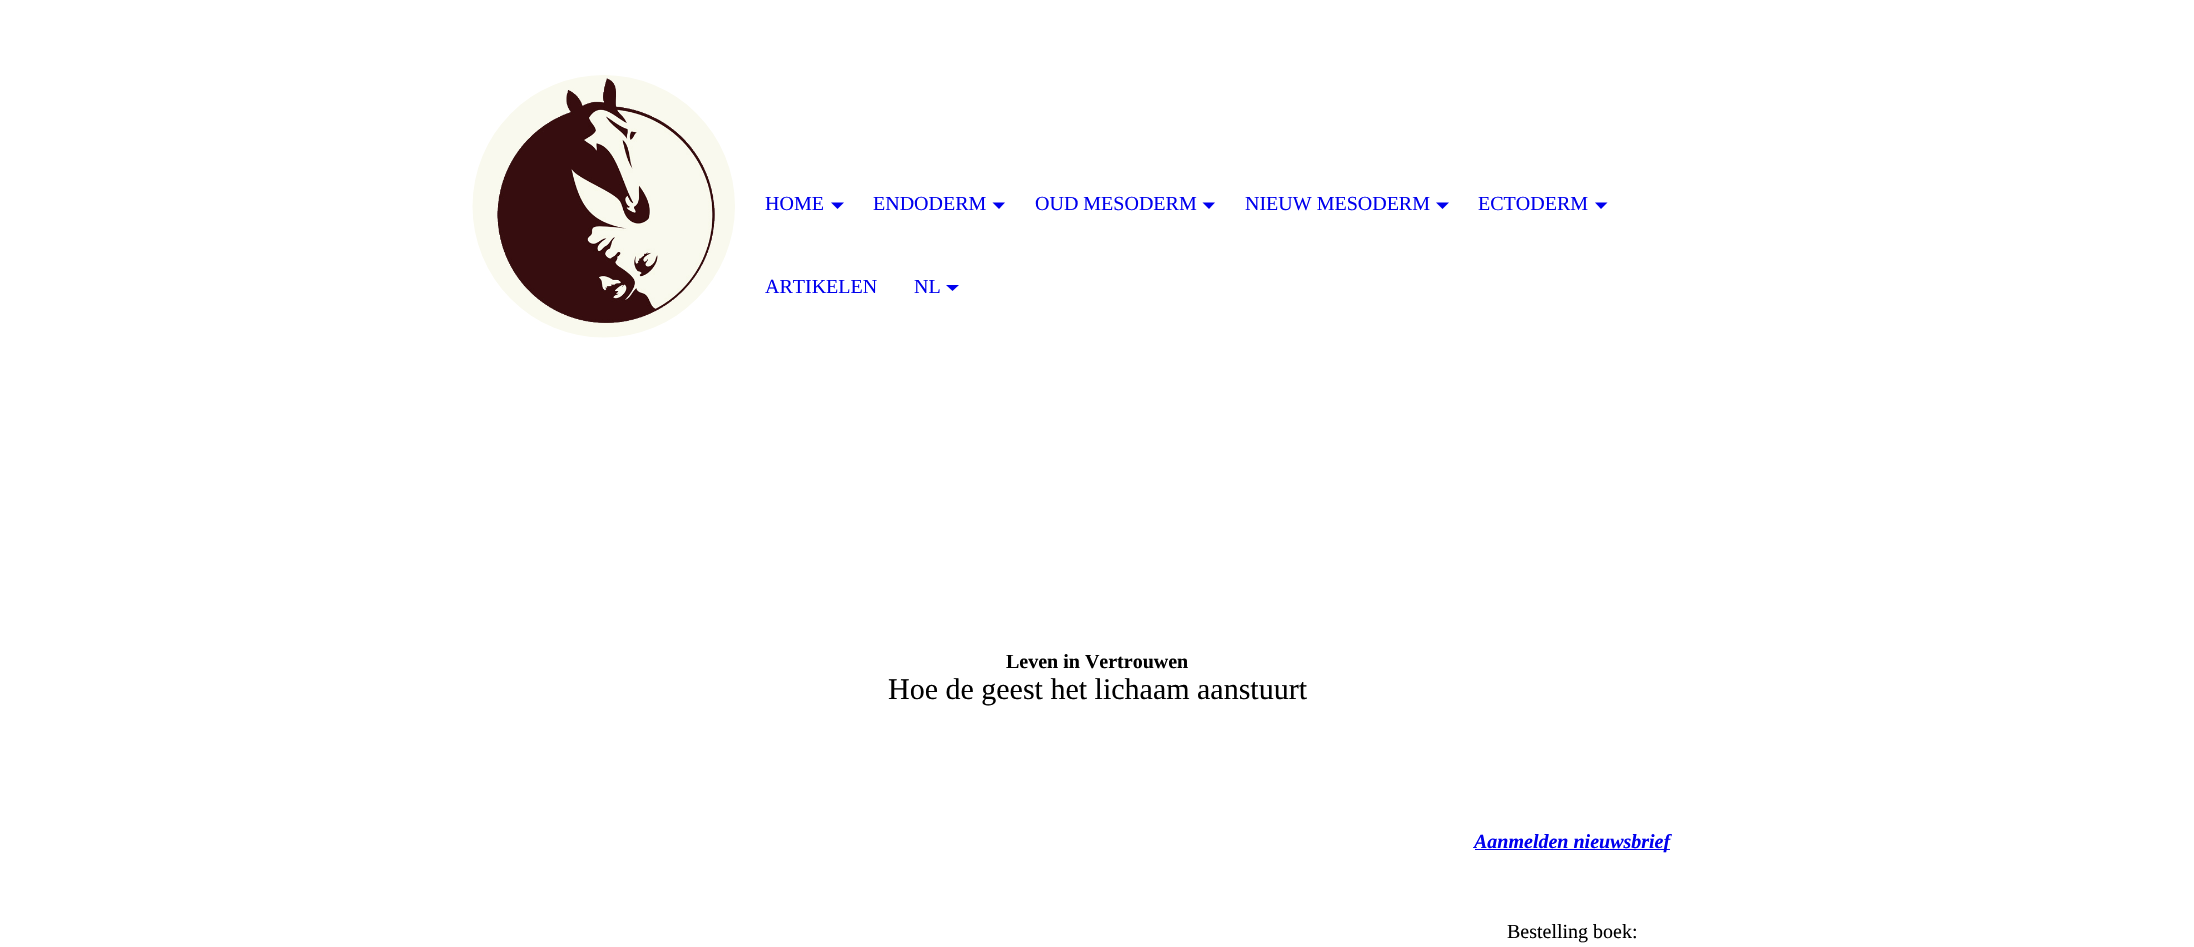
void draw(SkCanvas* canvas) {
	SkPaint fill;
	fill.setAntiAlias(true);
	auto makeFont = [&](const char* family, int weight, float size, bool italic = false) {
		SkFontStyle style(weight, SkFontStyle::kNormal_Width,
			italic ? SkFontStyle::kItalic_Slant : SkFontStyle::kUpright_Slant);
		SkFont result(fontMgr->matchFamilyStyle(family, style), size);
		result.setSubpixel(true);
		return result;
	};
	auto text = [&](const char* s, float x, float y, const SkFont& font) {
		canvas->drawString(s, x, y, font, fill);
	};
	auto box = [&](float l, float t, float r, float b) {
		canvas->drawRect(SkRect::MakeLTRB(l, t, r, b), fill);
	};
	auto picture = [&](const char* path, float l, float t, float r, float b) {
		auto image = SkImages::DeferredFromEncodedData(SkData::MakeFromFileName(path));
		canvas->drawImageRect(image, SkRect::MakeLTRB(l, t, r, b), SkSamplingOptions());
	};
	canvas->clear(0xFFFFFFFF);
	picture("image0.png", 472, 75, 735, 338);
	fill.setColor(0xFF0000EE);
	canvas->drawPath(SkPathBuilder().moveTo(831, 202.5f).lineTo(844, 202.5f).lineTo(837.5f, 209).close().detach(), fill);
	canvas->drawPath(SkPathBuilder().moveTo(992.5f, 202.5f).lineTo(1005, 202.5f).lineTo(999, 209).close().detach(), fill);
	canvas->drawPath(SkPathBuilder().moveTo(1202.5f, 202.5f).lineTo(1215, 202.5f).lineTo(1209, 209).close().detach(), fill);
	canvas->drawPath(SkPathBuilder().moveTo(1436, 202.5f).lineTo(1449, 202.5f).lineTo(1442.5f, 209).close().detach(), fill);
	canvas->drawPath(SkPathBuilder().moveTo(1595, 202.5f).lineTo(1607.5f, 202.5f).lineTo(1601, 209).close().detach(), fill);
	canvas->drawPath(SkPathBuilder().moveTo(946, 285).lineTo(959, 285).lineTo(952.5f, 291).close().detach(), fill);
	box(1475, 849, 1670, 850);
	auto font1 = makeFont("Liberation Serif", 400, 20);
	text("HOME", 765, 210, font1);
	text("ENDODERM", 873, 210, font1);
	text("OUD MESODERM", 1035, 210, font1);
	text("NIEUW MESODERM", 1245, 210, font1);
	text("ECTODERM", 1478, 210, font1);
	text("ARTIKELEN", 765, 293, font1);
	text("NL", 914, 293, font1);
	auto font2 = makeFont("Liberation Serif", 700, 20);
	fill.setColor(0xFF000000);
	text("Leven in Vertrouwen", 1006, 668, font2);
	auto font3 = makeFont("Liberation Serif", 400, 30);
	text("Hoe de geest het lichaam aanstuurt", 888, 699, font3);
	auto font4 = makeFont("Liberation Serif", 700, 20, true);
	fill.setColor(0xFF0000EE);
	text("Aanmelden nieuwsbrief", 1474, 848, font4);
	fill.setColor(0xFF000000);
	text("Bestelling boek:", 1507, 938, font1);
}
